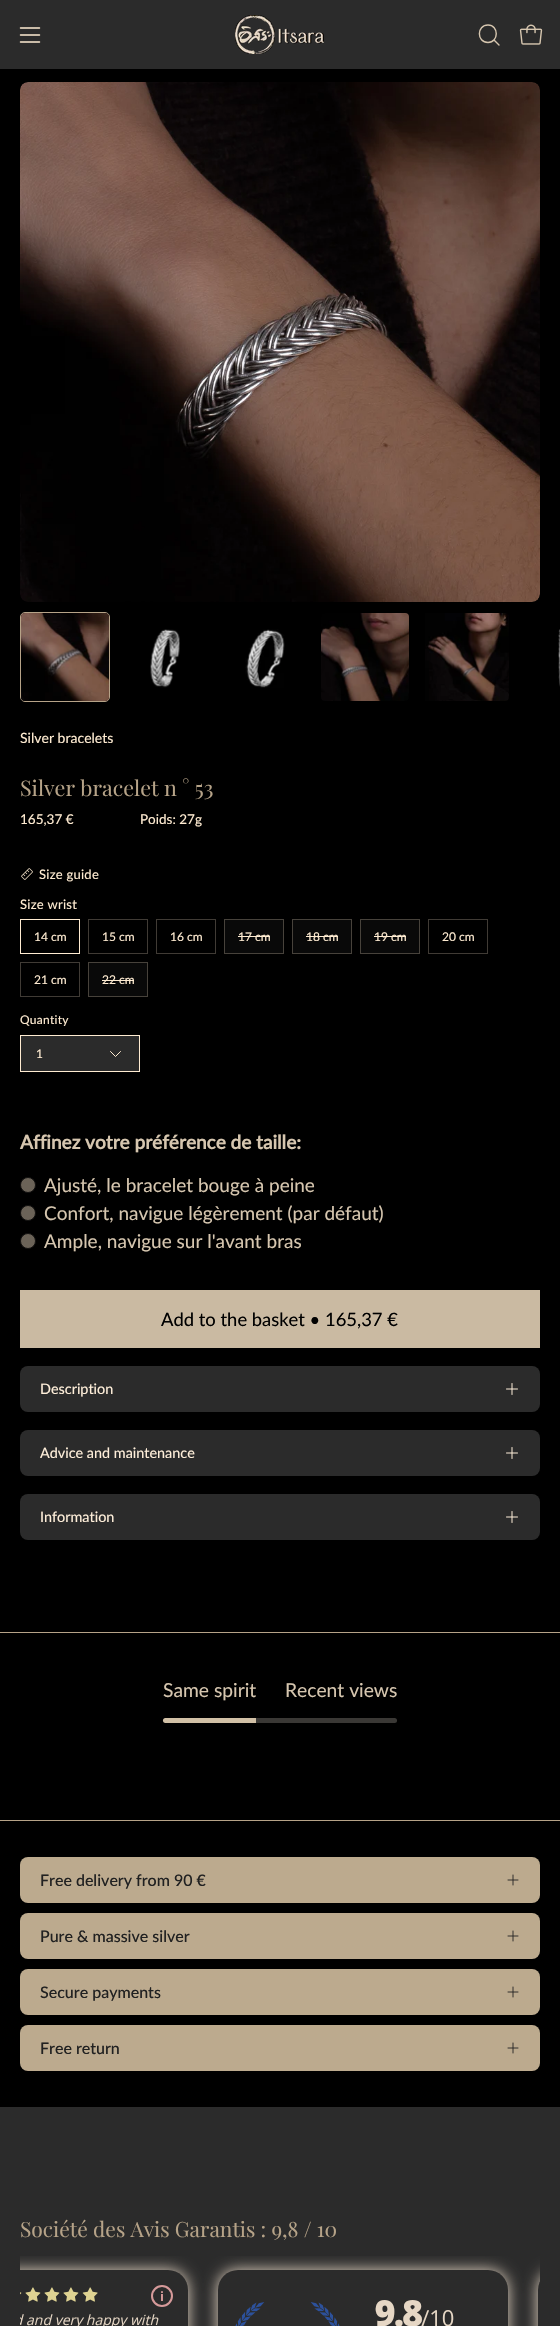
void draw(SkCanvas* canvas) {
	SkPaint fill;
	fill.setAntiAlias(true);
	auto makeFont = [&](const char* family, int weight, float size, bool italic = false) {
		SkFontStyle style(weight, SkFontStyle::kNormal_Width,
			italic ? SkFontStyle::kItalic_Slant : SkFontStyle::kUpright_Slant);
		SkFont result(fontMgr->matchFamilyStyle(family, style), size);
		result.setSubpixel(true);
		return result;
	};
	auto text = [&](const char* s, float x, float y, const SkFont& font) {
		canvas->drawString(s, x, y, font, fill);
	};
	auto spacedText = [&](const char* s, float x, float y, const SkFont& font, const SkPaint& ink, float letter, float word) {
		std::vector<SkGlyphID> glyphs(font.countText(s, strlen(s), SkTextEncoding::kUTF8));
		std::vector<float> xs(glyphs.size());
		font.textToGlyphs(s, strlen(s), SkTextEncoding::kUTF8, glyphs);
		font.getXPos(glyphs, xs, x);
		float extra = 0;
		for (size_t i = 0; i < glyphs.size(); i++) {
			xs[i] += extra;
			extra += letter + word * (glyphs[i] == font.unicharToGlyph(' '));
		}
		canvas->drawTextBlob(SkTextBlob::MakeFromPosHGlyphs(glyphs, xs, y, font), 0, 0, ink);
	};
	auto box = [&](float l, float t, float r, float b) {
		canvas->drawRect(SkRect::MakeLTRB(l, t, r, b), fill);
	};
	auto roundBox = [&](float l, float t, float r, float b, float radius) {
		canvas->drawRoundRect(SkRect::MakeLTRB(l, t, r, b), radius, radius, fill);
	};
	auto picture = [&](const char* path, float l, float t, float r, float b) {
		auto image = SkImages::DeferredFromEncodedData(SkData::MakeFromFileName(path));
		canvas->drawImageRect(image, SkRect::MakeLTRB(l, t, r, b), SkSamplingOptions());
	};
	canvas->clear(0xFF2B2B2B);
	fill.setStyle(SkPaint::kStroke_Style);
	fill.setStrokeWidth(1.5f);
	fill.setStrokeCap(SkPaint::kRound_Cap);
	fill.setStrokeJoin(SkPaint::kRound_Join);
	fill.setColor(0xFFFFECD2);
	canvas->drawPath(SkPathBuilder().moveTo(20.5f, 35).lineTo(39.5f, 35).moveTo(20.5f, 28).lineTo(39.5f, 28).moveTo(20.5f, 42).lineTo(39.5f, 42).detach(), fill);
	picture("image0.png", 235, 15, 324, 54);
	fill.setStrokeWidth(1.4f);
	fill.setColor(0xFFD6C6AF);
	canvas->drawPath(SkPathBuilder().moveTo(488, 42.5f).cubicTo(499, 42.5f, 499, 25, 488, 25).cubicTo(476.5f, 25, 476.5f, 42.5f, 488, 42.5f).close().moveTo(494, 40).lineTo(499, 45).detach(), fill);
	picture("image1.png", 519, 24, 543, 45);
	fill.setStyle(SkPaint::kFill_Style);
	fill.setColor(0xFF000000);
	box(0, 69, 560, 1663);
	picture("image2.png", 20, 82, 540, 602);
	fill.setStyle(SkPaint::kStroke_Style);
	fill.setStrokeWidth(1);
	fill.setStrokeCap(SkPaint::kButt_Cap);
	fill.setStrokeJoin(SkPaint::kMiter_Join);
	fill.setColor(0xFFB6A388);
	canvas->drawRoundRect(SkRect::MakeLTRB(20.5f, 612.5f, 109.5f, 701.5f), 4.5f, 4.5f, fill);
	picture("image3.png", 21, 613, 109, 701);
	picture("image4.png", 150, 629, 180, 688);
	picture("image5.png", 245, 629, 285, 688);
	picture("image6.png", 321, 613, 409, 701);
	picture("image7.png", 425, 613, 509, 701);
	picture("image8.png", 558, 629, 560, 687);
	picture("image9.png", 21, 868, 33, 880);
	fill.setColor(0xFFFFECD2);
	canvas->drawRect(SkRect::MakeLTRB(20.5f, 919.5f, 79.5f, 953.5f), fill);
	fill.setColor(0xFF403B35);
	canvas->drawRect(SkRect::MakeLTRB(88.5f, 919.5f, 147.5f, 953.5f), fill);
	canvas->drawRect(SkRect::MakeLTRB(156.5f, 919.5f, 215.5f, 953.5f), fill);
	fill.setStyle(SkPaint::kFill_Style);
	fill.setColor(0xFF090909);
	canvas->drawRect(SkRect::MakeLTRB(224.5f, 919.5f, 283.5f, 953.5f), fill);
	fill.setStyle(SkPaint::kStroke_Style);
	fill.setColor(0xFF47423B);
	canvas->drawRect(SkRect::MakeLTRB(224.5f, 919.5f, 283.5f, 953.5f), fill);
	fill.setStyle(SkPaint::kFill_Style);
	fill.setColor(0xFFFFECD2);
	box(238, 936, 270, 937);
	fill.setColor(0xFF090909);
	canvas->drawRect(SkRect::MakeLTRB(292.5f, 919.5f, 351.5f, 953.5f), fill);
	fill.setStyle(SkPaint::kStroke_Style);
	fill.setColor(0xFF47423B);
	canvas->drawRect(SkRect::MakeLTRB(292.5f, 919.5f, 351.5f, 953.5f), fill);
	fill.setStyle(SkPaint::kFill_Style);
	fill.setColor(0xFFFFECD2);
	box(306, 936, 338, 937);
	fill.setColor(0xFF090909);
	canvas->drawRect(SkRect::MakeLTRB(360.5f, 919.5f, 419.5f, 953.5f), fill);
	fill.setStyle(SkPaint::kStroke_Style);
	fill.setColor(0xFF47423B);
	canvas->drawRect(SkRect::MakeLTRB(360.5f, 919.5f, 419.5f, 953.5f), fill);
	fill.setStyle(SkPaint::kFill_Style);
	fill.setColor(0xFFFFECD2);
	box(374, 936, 406, 937);
	fill.setStyle(SkPaint::kStroke_Style);
	fill.setColor(0xFF403B35);
	canvas->drawRect(SkRect::MakeLTRB(428.5f, 919.5f, 487.5f, 953.5f), fill);
	canvas->drawRect(SkRect::MakeLTRB(20.5f, 962.5f, 79.5f, 996.5f), fill);
	fill.setStyle(SkPaint::kFill_Style);
	fill.setColor(0xFF090909);
	canvas->drawRect(SkRect::MakeLTRB(88.5f, 962.5f, 147.5f, 996.5f), fill);
	fill.setStyle(SkPaint::kStroke_Style);
	fill.setColor(0xFF47423B);
	canvas->drawRect(SkRect::MakeLTRB(88.5f, 962.5f, 147.5f, 996.5f), fill);
	fill.setStyle(SkPaint::kFill_Style);
	fill.setColor(0xFFFFECD2);
	box(102, 980, 134, 981);
	fill.setColor(0xFF2B2B2B);
	canvas->drawRect(SkRect::MakeLTRB(20.5f, 1035.5f, 139.5f, 1071.5f), fill);
	fill.setStyle(SkPaint::kStroke_Style);
	fill.setColor(0xFFFFECD2);
	canvas->drawRect(SkRect::MakeLTRB(20.5f, 1035.5f, 139.5f, 1071.5f), fill);
	fill.setStrokeCap(SkPaint::kRound_Cap);
	fill.setStrokeJoin(SkPaint::kRound_Join);
	canvas->drawPath(SkPathBuilder().moveTo(120.5f, 1051.5f).lineTo(115.5f, 1056.5f).lineTo(110.5f, 1051.5f).detach(), fill);
	fill.setStyle(SkPaint::kFill_Style);
	fill.setColor(0xFF6B6358);
	canvas->drawCircle(28, 1185, 7.5f, fill);
	fill.setStyle(SkPaint::kStroke_Style);
	fill.setStrokeCap(SkPaint::kButt_Cap);
	fill.setStrokeJoin(SkPaint::kMiter_Join);
	fill.setColor(0xFF11100F);
	canvas->drawCircle(28, 1185, 7.5f, fill);
	fill.setStyle(SkPaint::kFill_Style);
	fill.setColor(0xFF6B6358);
	canvas->drawCircle(28, 1213, 7.5f, fill);
	fill.setStyle(SkPaint::kStroke_Style);
	fill.setColor(0xFF11100F);
	canvas->drawCircle(28, 1213, 7.5f, fill);
	fill.setStyle(SkPaint::kFill_Style);
	fill.setColor(0xFF6B6358);
	canvas->drawCircle(28, 1241, 7.5f, fill);
	fill.setStyle(SkPaint::kStroke_Style);
	fill.setColor(0xFF11100F);
	canvas->drawCircle(28, 1241, 7.5f, fill);
	fill.setStyle(SkPaint::kFill_Style);
	fill.setColor(0xFFCABAA2);
	box(20, 1290, 540, 1348);
	fill.setColor(0xFF2B2B2B);
	roundBox(20, 1366, 540, 1412, 8);
	fill.setStyle(SkPaint::kStroke_Style);
	fill.setStrokeCap(SkPaint::kRound_Cap);
	fill.setStrokeJoin(SkPaint::kRound_Join);
	fill.setColor(0xFFFFEFDA);
	canvas->drawPath(SkPathBuilder().moveTo(506.5f, 1389).lineTo(517.5f, 1389).moveTo(512, 1383.5f).lineTo(512, 1394.5f).detach(), fill);
	fill.setStyle(SkPaint::kFill_Style);
	fill.setColor(0xFF2B2B2B);
	roundBox(20, 1430, 540, 1476, 8);
	fill.setStyle(SkPaint::kStroke_Style);
	fill.setColor(0xFFFFEFDA);
	canvas->drawPath(SkPathBuilder().moveTo(506.5f, 1453).lineTo(517.5f, 1453).moveTo(512, 1447.5f).lineTo(512, 1458.5f).detach(), fill);
	fill.setStyle(SkPaint::kFill_Style);
	fill.setColor(0xFF2B2B2B);
	roundBox(20, 1494, 540, 1540, 8);
	fill.setStyle(SkPaint::kStroke_Style);
	fill.setColor(0xFFFFEFDA);
	canvas->drawPath(SkPathBuilder().moveTo(506.5f, 1517).lineTo(517.5f, 1517).moveTo(512, 1511.5f).lineTo(512, 1522.5f).detach(), fill);
	fill.setStyle(SkPaint::kFill_Style);
	fill.setColor(0xFFB6A388);
	box(0, 1632, 560, 1633);
	fill.setColor(0xFF000000);
	box(0, 1663, 560, 1820);
	fill.setColor(0xFFB6A388);
	box(0, 1820, 560, 1821);
	fill.setColor(0xFF3A3835);
	roundBox(163, 1718, 397, 1723, 2.5f);
	fill.setColor(0xFFD1C0A6);
	canvas->drawPath(SkPathBuilder().moveTo(165.5f, 1718).lineTo(256, 1718).lineTo(256, 1723).lineTo(165.5f, 1723).cubicTo(164, 1723, 163, 1722, 163, 1720.5f).cubicTo(163, 1719, 164, 1718, 165.5f, 1718).close().detach(), fill);
	fill.setColor(0xFF000000);
	box(0, 1821, 560, 2107);
	fill.setColor(0xFFBCAA8E);
	roundBox(20, 1857, 540, 1903, 8);
	fill.setStyle(SkPaint::kStroke_Style);
	fill.setStrokeWidth(0.9f);
	fill.setColor(0xFF212121);
	canvas->drawPath(SkPathBuilder().moveTo(508, 1880).lineTo(518, 1880).moveTo(513, 1875).lineTo(513, 1885).detach(), fill);
	fill.setStyle(SkPaint::kFill_Style);
	fill.setColor(0xFFBCAA8E);
	roundBox(20, 1913, 540, 1959, 8);
	fill.setStyle(SkPaint::kStroke_Style);
	fill.setColor(0xFF212121);
	canvas->drawPath(SkPathBuilder().moveTo(508, 1936).lineTo(518, 1936).moveTo(513, 1931).lineTo(513, 1941).detach(), fill);
	fill.setStyle(SkPaint::kFill_Style);
	fill.setColor(0xFFBCAA8E);
	roundBox(20, 1969, 540, 2015, 8);
	fill.setStyle(SkPaint::kStroke_Style);
	fill.setColor(0xFF212121);
	canvas->drawPath(SkPathBuilder().moveTo(508, 1992).lineTo(518, 1992).moveTo(513, 1987).lineTo(513, 1997).detach(), fill);
	fill.setStyle(SkPaint::kFill_Style);
	fill.setColor(0xFFBCAA8E);
	roundBox(20, 2025, 540, 2071, 8);
	fill.setStyle(SkPaint::kStroke_Style);
	fill.setColor(0xFF212121);
	canvas->drawPath(SkPathBuilder().moveTo(508, 2048).lineTo(518, 2048).moveTo(513, 2043).lineTo(513, 2053).detach(), fill);
	picture("image10.png", 20, 2256, 540, 2326);
	auto font1 = makeFont("Lato", 400, 14);
	fill.setStyle(SkPaint::kFill_Style);
	fill.setColor(0xFFFFECD2);
	text("Silver bracelets", 20, 743, font1);
	auto font2 = makeFont("Playfair Display", 400, 21.5f);
	fill.setColor(0xFFB6A388);
	text("Silver bracelet n ° 53", 20, 796, font2);
	auto font3 = makeFont("Lato", 400, 13.5f);
	fill.setColor(0xFFFFECD2);
	text("165,37 €", 20, 824, font3);
	text("Poids: 27g", 140, 824, font3);
	auto font4 = makeFont("Lato", 400, 13);
	spacedText("Size guide", 39, 879, font4, fill, 0.25f, 0);
	spacedText("Size wrist", 20, 909, font4, fill, 0.25f, 0);
	auto font5 = makeFont("Lato", 400, 12);
	text("14 cm", 34, 941, font5);
	text("15 cm", 102, 941, font5);
	text("16 cm", 170, 941, font5);
	text("17 cm", 238, 941, font5);
	text("18 cm", 306, 941, font5);
	text("19 cm", 374, 941, font5);
	text("20 cm", 442, 941, font5);
	text("21 cm", 34, 984, font5);
	text("22 cm", 102, 984, font5);
	spacedText("Quantity", 20, 1024, font5, fill, 0.25f, 0);
	text("1", 36, 1058, font5);
	auto font6 = makeFont("Lato", 700, 19);
	fill.setColor(0xFFD6C6AF);
	text("Affinez votre préférence de taille:", 20, 1149, font6);
	auto font7 = makeFont("Lato", 400, 19);
	text("Ajusté, le bracelet bouge à peine", 44, 1192, font7);
	text("Confort, navigue légèrement (par défaut)", 44, 1220, font7);
	text("Ample, navigue sur l'avant bras", 44, 1248, font7);
	auto font8 = makeFont("Lato", 400, 18.4f);
	fill.setColor(0xFF000000);
	text("Add to the basket • 165,37 €", 161, 1326, font8);
	auto font9 = makeFont("Lato", 400, 14.4f);
	fill.setColor(0xFFFFEFDA);
	text("Description", 40, 1394, font9);
	text("Advice and maintenance", 40, 1458, font9);
	text("Information", 40, 1522, font9);
	auto font10 = makeFont("Lato", 400, 19.25f);
	fill.setColor(0xFFD6C6AF);
	text("Same spirit", 163, 1697, font10);
	text("Recent views", 285, 1697, font10);
	auto font11 = makeFont("Lato", 500, 16);
	fill.setColor(0xFF212121);
	text("Free delivery from 90 €", 40, 1886, font11);
	text("Pure & massive silver", 40, 1942, font11);
	text("Secure payments", 40, 1998, font11);
	text("Free return", 40, 2054, font11);
	auto font12 = makeFont("Playfair Display", 400, 21);
	fill.setColor(0xFFB6A388);
	text("Société des Avis Garantis : 9,8 / 10", 20, 2237, font12);
}
